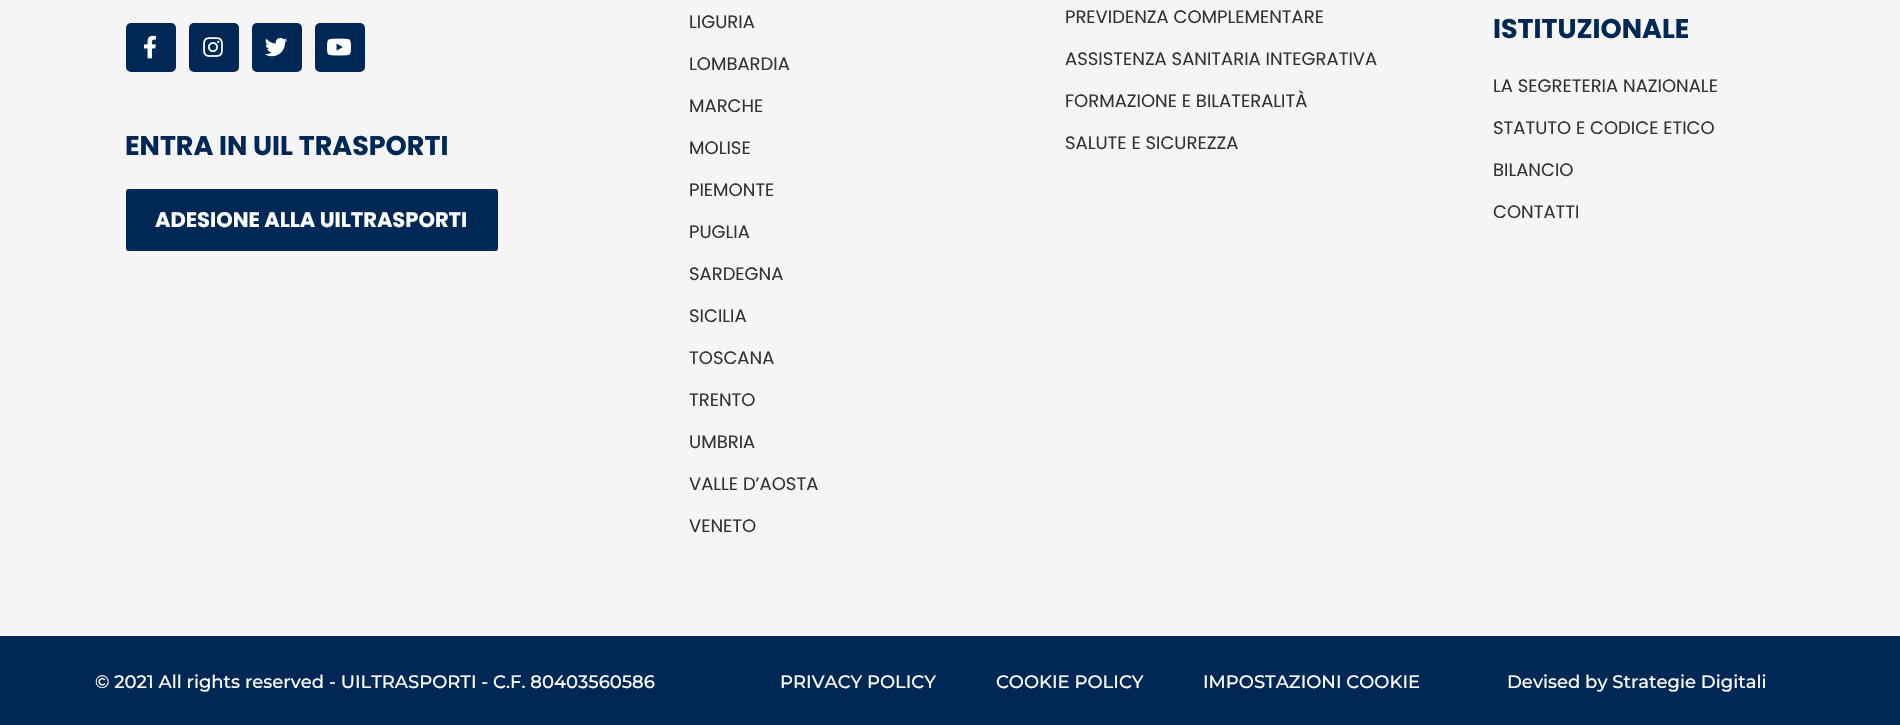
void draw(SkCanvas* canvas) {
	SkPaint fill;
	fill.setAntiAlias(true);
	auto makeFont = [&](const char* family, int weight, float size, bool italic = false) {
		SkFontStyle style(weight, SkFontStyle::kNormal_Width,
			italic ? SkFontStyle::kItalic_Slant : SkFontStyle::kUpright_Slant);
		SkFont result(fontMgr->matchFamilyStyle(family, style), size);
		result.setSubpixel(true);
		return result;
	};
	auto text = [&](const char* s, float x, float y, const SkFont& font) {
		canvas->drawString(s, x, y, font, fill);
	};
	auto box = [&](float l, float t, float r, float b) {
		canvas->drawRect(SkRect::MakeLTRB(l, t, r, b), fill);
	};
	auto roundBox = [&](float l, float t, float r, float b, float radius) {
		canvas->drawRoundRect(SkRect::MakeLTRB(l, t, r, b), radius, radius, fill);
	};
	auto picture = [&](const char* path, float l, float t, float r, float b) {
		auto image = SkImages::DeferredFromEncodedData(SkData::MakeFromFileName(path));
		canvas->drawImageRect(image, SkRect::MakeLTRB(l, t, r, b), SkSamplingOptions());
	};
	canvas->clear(0xFFF5F5F5);
	fill.setColor(0xFF002856);
	roundBox(126, 23, 176, 72, 5);
	picture("image0.png", 144, 35, 156, 59);
	roundBox(189, 23, 239, 72, 5);
	picture("image1.png", 203, 37, 223, 57);
	roundBox(252, 23, 302, 72, 5);
	picture("image2.png", 265, 37, 288, 57);
	roundBox(315, 23, 365, 72, 5);
	picture("image3.png", 327, 38, 351, 56);
	roundBox(126, 189, 498, 251, 3);
	box(0, 636, 1900, 725);
	auto font1 = makeFont("Poppins", 700, 27);
	text("ENTRA IN UIL TRASPORTI", 125, 155, font1);
	auto font2 = makeFont("Poppins", 700, 21);
	fill.setColor(0xFFFFFFFF);
	text("ADESIONE ALLA UILTRASPORTI", 155, 227, font2);
	auto font3 = makeFont("Poppins", 400, 18);
	fill.setColor(0xFF333333);
	text("LIGURIA", 689, 28, font3);
	text("LOMBARDIA", 689, 70, font3);
	text("MARCHE", 689, 112, font3);
	text("MOLISE", 689, 154, font3);
	text("PIEMONTE", 689, 196, font3);
	text("PUGLIA", 689, 238, font3);
	text("SARDEGNA", 689, 280, font3);
	text("SICILIA", 689, 322, font3);
	text("TOSCANA", 689, 364, font3);
	text("TRENTO", 689, 406, font3);
	text("UMBRIA", 689, 448, font3);
	text("VALLE D’AOSTA", 689, 490, font3);
	text("VENETO", 689, 532, font3);
	text("PREVIDENZA COMPLEMENTARE", 1065, 23, font3);
	text("ASSISTENZA SANITARIA INTEGRATIVA", 1065, 65, font3);
	text("FORMAZIONE E BILATERALITÀ", 1065, 107, font3);
	text("SALUTE E SICUREZZA", 1065, 149, font3);
	fill.setColor(0xFF002856);
	text("ISTITUZIONALE", 1493, 38, font1);
	fill.setColor(0xFF333333);
	text("LA SEGRETERIA NAZIONALE", 1493, 92, font3);
	text("STATUTO E CODICE ETICO", 1493, 134, font3);
	text("BILANCIO", 1493, 176, font3);
	text("CONTATTI", 1493, 218, font3);
	auto font4 = makeFont("Montserrat", 500, 18);
	fill.setColor(0xFFFFFFFF);
	text("© 2021 All rights reserved - UILTRASPORTI - C.F. 80403560586", 95, 688, font4);
	text("PRIVACY POLICY", 780, 688, font4);
	text("COOKIE POLICY", 996, 688, font4);
	text("IMPOSTAZIONI COOKIE", 1203, 688, font4);
	text("Devised by Strategie Digitali", 1507, 688, font4);
}
